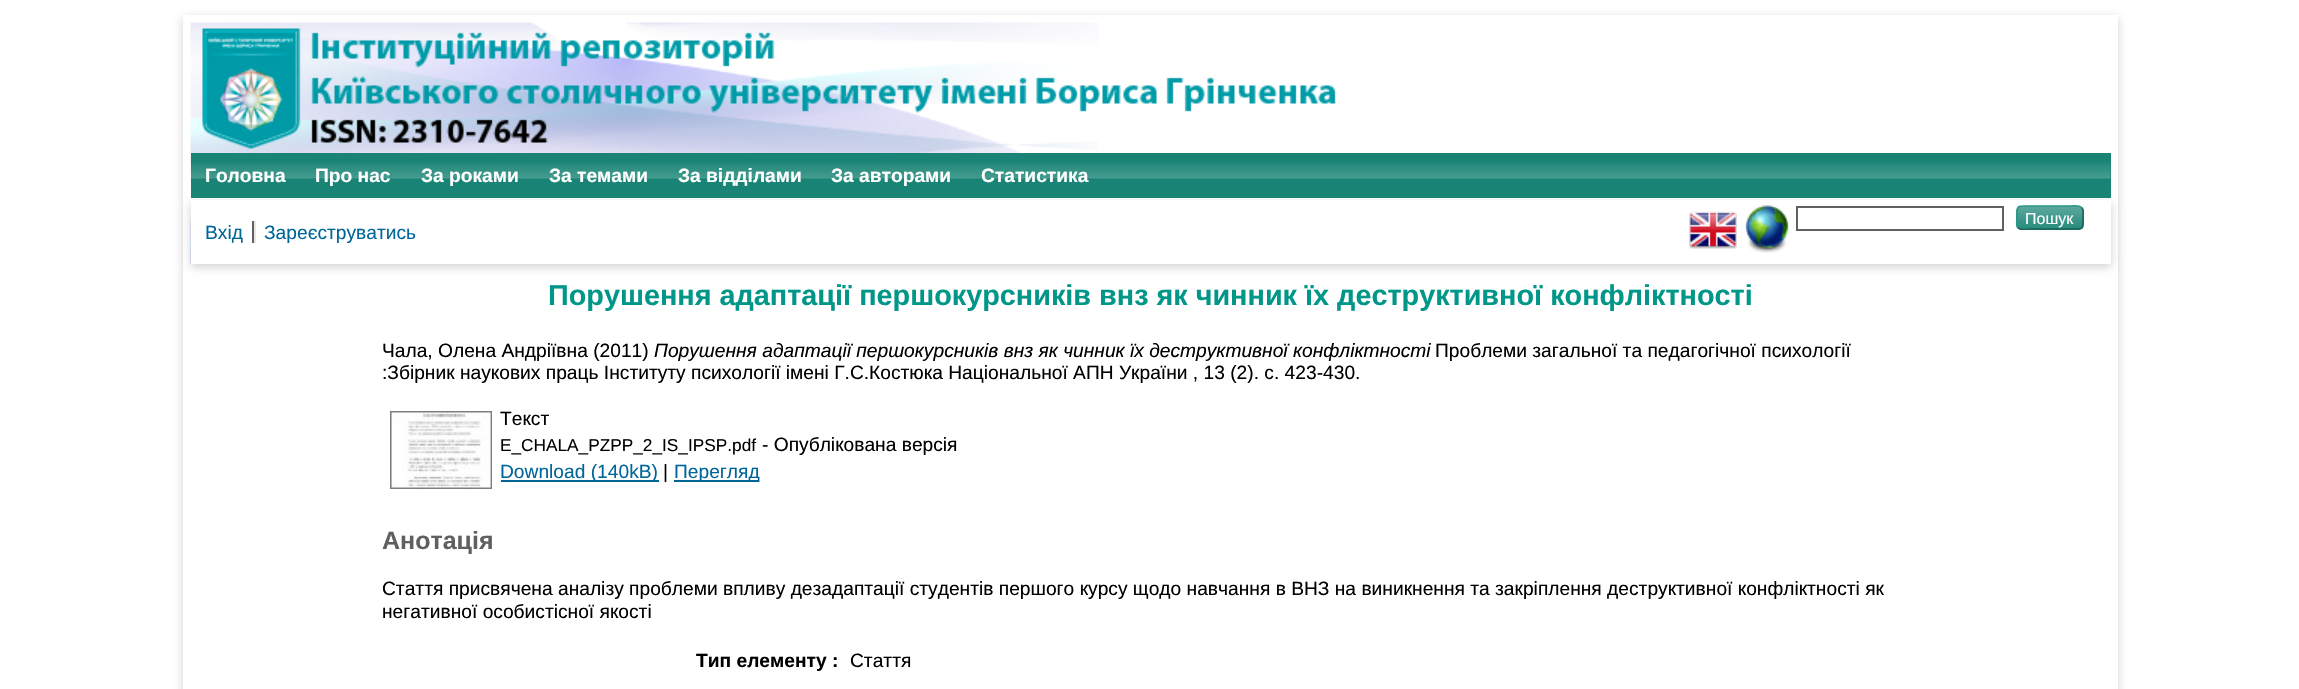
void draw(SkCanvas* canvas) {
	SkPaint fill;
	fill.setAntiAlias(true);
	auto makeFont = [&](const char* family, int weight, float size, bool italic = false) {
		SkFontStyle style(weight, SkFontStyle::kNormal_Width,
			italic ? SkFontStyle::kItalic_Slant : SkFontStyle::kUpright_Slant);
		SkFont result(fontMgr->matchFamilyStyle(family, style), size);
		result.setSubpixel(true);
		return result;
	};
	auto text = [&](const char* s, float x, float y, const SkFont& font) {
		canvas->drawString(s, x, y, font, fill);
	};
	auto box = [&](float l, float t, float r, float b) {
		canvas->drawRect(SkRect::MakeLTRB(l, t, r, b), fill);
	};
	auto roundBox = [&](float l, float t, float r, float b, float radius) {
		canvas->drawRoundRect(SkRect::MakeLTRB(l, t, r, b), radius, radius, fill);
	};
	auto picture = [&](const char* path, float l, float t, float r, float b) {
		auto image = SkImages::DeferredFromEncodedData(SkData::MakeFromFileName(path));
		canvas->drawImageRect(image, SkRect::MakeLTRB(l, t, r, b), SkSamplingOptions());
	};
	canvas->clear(0xFFFFFFFF);
	canvas->save();
	canvas->clipPath(SkPathBuilder(SkPathFillType::kEvenOdd).moveTo(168, 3).lineTo(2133, 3).lineTo(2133, 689).lineTo(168, 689).close().moveTo(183, 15).lineTo(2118, 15).lineTo(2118, 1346).lineTo(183, 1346).close().detach(), true);
	fill.setColor(0x4D646464);
	fill.setMaskFilter(SkMaskFilter::MakeBlur(kNormal_SkBlurStyle, 4.5f));
	canvas->drawRect(SkRect::MakeLTRB(183, 18, 2118, 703), fill);
	fill.setMaskFilter(nullptr);
	canvas->restore();
	picture("image0.png", 190, 22, 1099, 264);
	picture("image1.png", 202, 28, 1337, 149);
	fill.setColor(0xFF198475);
	box(191, 153, 2111, 198);
	picture("image2.png", 191, 162, 2111, 179);
	fill.setColor(0xFFFFFFFF);
	box(566, 198, 1085, 200);
	fill.setColor(0x4D646464);
	fill.setMaskFilter(SkMaskFilter::MakeBlur(kNormal_SkBlurStyle, 4.5f));
	canvas->drawRect(SkRect::MakeLTRB(191, 203, 2111, 267), fill);
	fill.setMaskFilter(nullptr);
	fill.setColor(0xFFFFFFFF);
	box(191, 200, 2111, 264);
	picture("image3.png", 1689, 211, 1737, 249);
	picture("image4.png", 1745, 205, 1789, 253);
	fill.setStyle(SkPaint::kStroke_Style);
	fill.setStrokeWidth(2);
	fill.setColor(0xFF606060);
	canvas->drawRect(SkRect::MakeLTRB(1797, 207, 2003, 230), fill);
	fill.setStyle(SkPaint::kFill_Style);
	fill.setColor(0xFF198475);
	roundBox(2016, 206, 2084, 230, 5);
	picture("image5.png", 2016, 206, 2084, 229);
	fill.setStyle(SkPaint::kStroke_Style);
	fill.setStrokeWidth(1.5f);
	fill.setColor(0xFF1B6458);
	canvas->drawPath(SkPathBuilder().moveTo(2081.5f, 207.5f).cubicTo(2084, 209.5f, 2083, 214.5f, 2083, 217.5f).cubicTo(2083, 230.5f, 2083, 229, 2069, 229).lineTo(2030, 229).cubicTo(2029.5f, 229, 2020.5f, 230.5f, 2018, 227.5f).detach(), fill);
	fill.setColor(0xFF289684);
	canvas->drawPath(SkPathBuilder().moveTo(2018, 227.5f).cubicTo(2015.5f, 225.5f, 2017, 220.5f, 2017, 217.5f).cubicTo(2017, 204.5f, 2016.5f, 206, 2030, 206).lineTo(2069, 206).cubicTo(2070, 206, 2079, 204.5f, 2081.5f, 207.5f).detach(), fill);
	fill.setStyle(SkPaint::kFill_Style);
	fill.setColor(0xFF606060);
	box(252, 221, 254, 243);
	fill.setColor(0xFFE8E8E8);
	box(254, 221, 256, 243);
	picture("image6.png", 390, 411, 492, 489);
	fill.setColor(0xFF006699);
	box(501, 480, 659, 482);
	box(674, 480, 759, 482);
	auto font1 = makeFont("Liberation Sans", 700, 19.2f);
	fill.setColor(0xFFFFFFFF);
	text("Головна", 205, 182, font1);
	text("Про нас", 315, 182, font1);
	text("За роками", 421, 182, font1);
	text("За темами", 549, 182, font1);
	text("За відділами", 678, 182, font1);
	text("За авторами", 831, 182, font1);
	text("Статистика", 981, 182, font1);
	auto font2 = makeFont("Liberation Sans", 400, 16);
	text("Пошук", 2025, 224, font2);
	auto font3 = makeFont("Liberation Sans", 400, 19.2f);
	fill.setColor(0xFF006699);
	text("Вхід", 205, 239, font3);
	text("Зареєструватись", 264, 239, font3);
	auto font4 = makeFont("Liberation Sans", 700, 28.8f);
	fill.setColor(0xFF009688);
	text("Порушення адаптації першокурсників внз як чинник їх деструктивної конфліктності", 548, 305, font4);
	fill.setColor(0xFF000000);
	text("Чала, Олена Андріївна (2011)", 382, 357, font3);
	auto font5 = makeFont("Liberation Sans", 400, 19.2f, true);
	text("Порушення адаптації першокурсників внз як чинник їх деструктивної конфліктності", 654, 357, font5);
	text("Проблеми загальної та педагогічної психології", 1435, 357, font3);
	text(":Збірник наукових праць Інституту психології імені Г.С.Костюка Національної АПН України , 13 (2). с. 423-430.", 382, 379, font3);
	text("Текст", 500, 425, font3);
	auto font6 = makeFont("Liberation Sans", 400, 17.25f);
	text("E_CHALA_PZPP_2_IS_IPSP.pdf", 500, 451, font6);
	text("- Опублікована версія", 762, 451, font3);
	fill.setColor(0xFF006699);
	text("Download (140kB)", 500, 478, font3);
	fill.setColor(0xFF000000);
	text("|", 663, 478, font3);
	fill.setColor(0xFF006699);
	text("Перегляд", 674, 478, font3);
	auto font7 = makeFont("Liberation Sans", 700, 25);
	fill.setColor(0xFF606060);
	text("Анотація", 382, 549, font7);
	fill.setColor(0xFF000000);
	text("Стаття присвячена аналізу проблеми впливу дезадаптації студентів першого курсу щодо навчання в ВНЗ на виникнення та закріплення деструктивної конфліктності як", 382, 595, font3);
	text("негативної особистісної якості", 382, 618, font3);
	text("Тип елементу :", 696, 667, font1);
	text("Стаття", 850, 667, font3);
}
